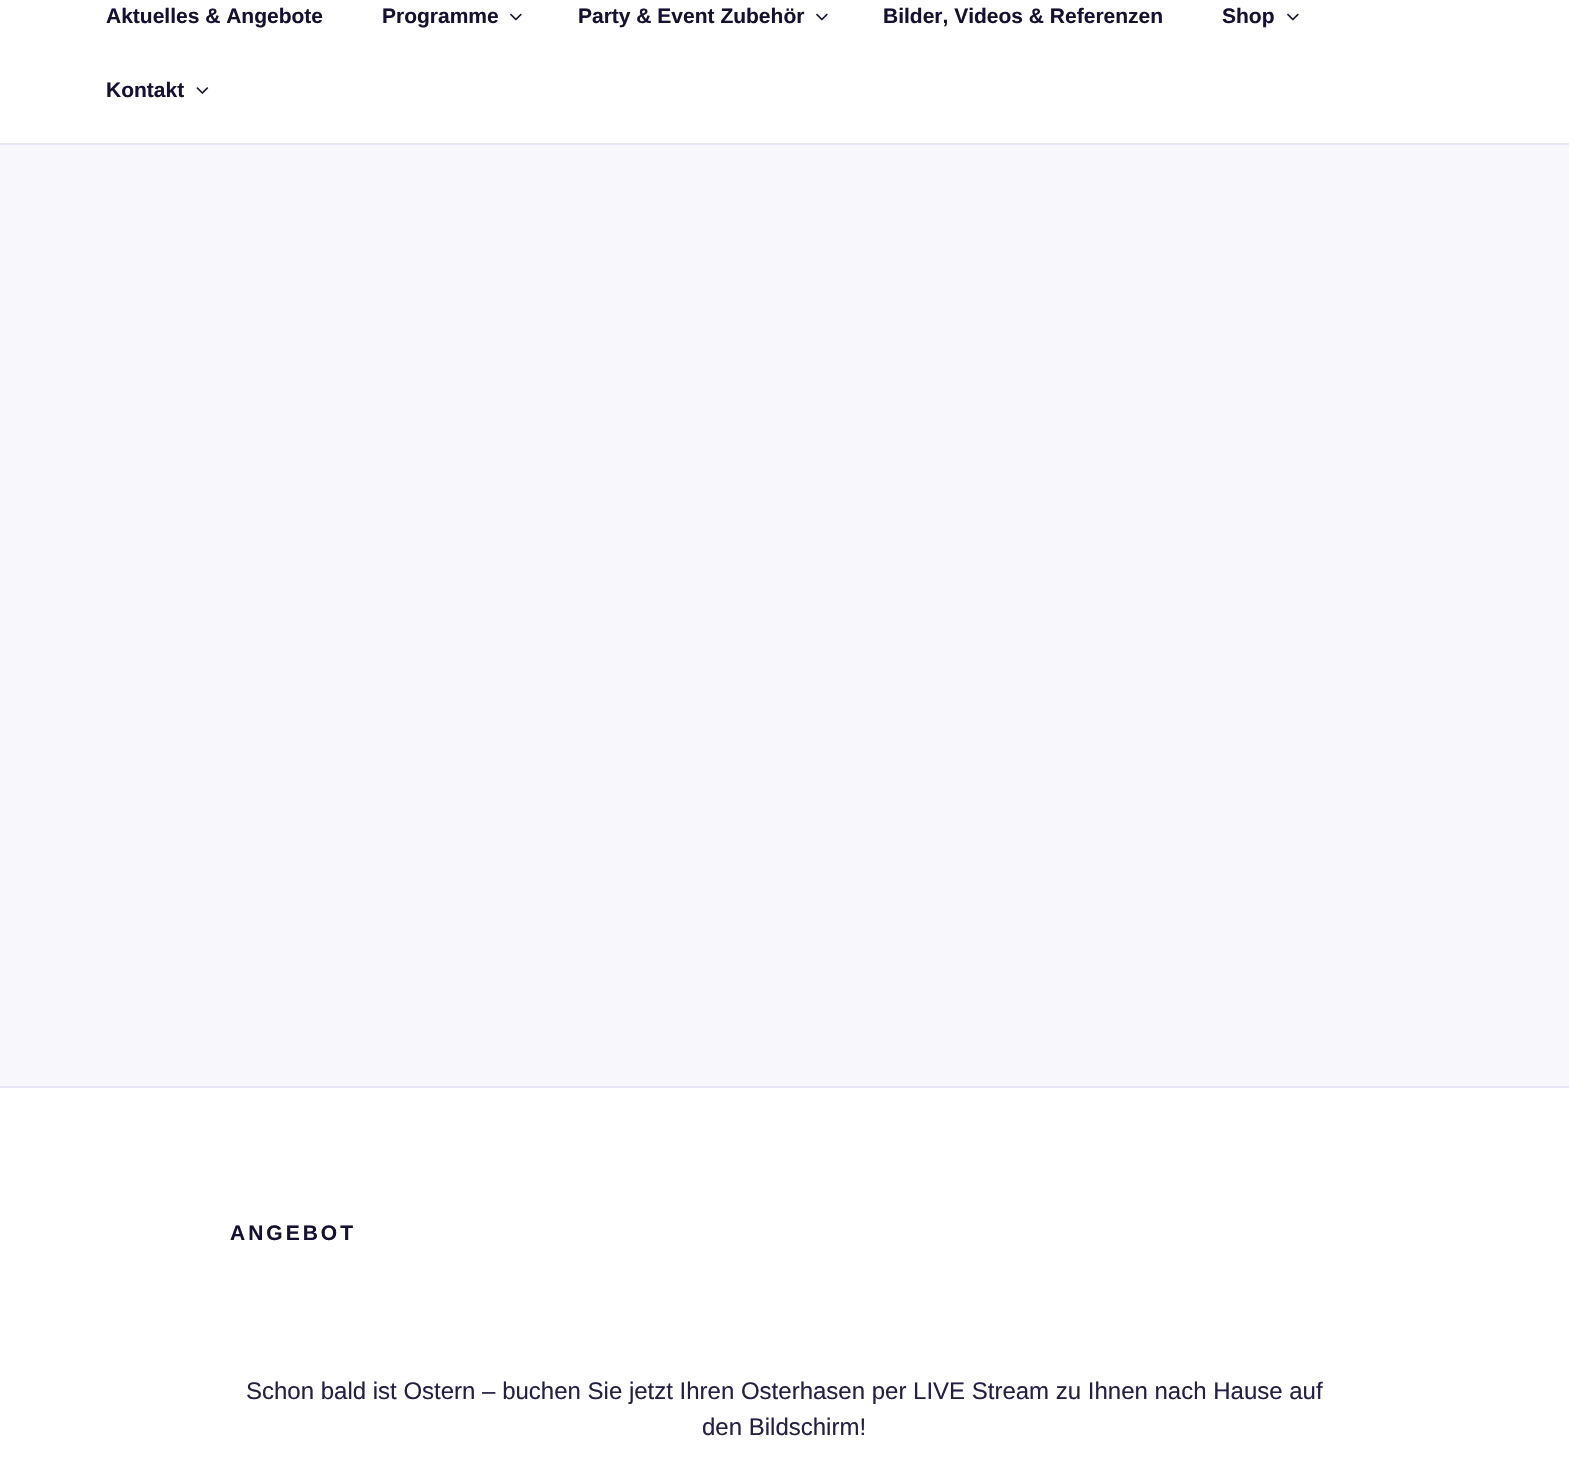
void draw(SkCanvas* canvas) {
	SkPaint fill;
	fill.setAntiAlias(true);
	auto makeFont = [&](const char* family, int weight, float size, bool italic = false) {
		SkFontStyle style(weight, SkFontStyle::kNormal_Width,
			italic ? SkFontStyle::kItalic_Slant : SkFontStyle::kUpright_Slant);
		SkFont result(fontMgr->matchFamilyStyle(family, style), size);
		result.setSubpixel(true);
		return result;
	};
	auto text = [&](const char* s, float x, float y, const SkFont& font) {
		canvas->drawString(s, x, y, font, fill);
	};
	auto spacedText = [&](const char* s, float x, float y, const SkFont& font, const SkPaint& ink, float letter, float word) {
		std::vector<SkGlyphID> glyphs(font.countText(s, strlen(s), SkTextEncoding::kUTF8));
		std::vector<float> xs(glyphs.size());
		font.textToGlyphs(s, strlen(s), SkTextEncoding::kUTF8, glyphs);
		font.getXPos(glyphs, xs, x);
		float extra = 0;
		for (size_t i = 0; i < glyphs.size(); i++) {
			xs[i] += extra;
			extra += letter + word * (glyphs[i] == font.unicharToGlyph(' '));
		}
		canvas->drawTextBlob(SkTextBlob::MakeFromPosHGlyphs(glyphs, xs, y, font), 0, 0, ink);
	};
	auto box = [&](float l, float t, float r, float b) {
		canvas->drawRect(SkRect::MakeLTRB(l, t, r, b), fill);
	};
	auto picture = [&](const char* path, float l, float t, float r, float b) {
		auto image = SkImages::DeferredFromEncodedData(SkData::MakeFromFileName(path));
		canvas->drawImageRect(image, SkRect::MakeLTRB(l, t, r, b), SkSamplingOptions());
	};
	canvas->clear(0xFFFFFFFF);
	fill.setColor(0xFFE7E4F6);
	box(0, 143, 1569, 145);
	picture("image0.png", 510, 13, 522, 21);
	picture("image0.png", 816, 13, 828, 21);
	picture("image0.png", 1287, 13, 1299, 21);
	picture("image1.png", 196, 87, 209, 94);
	fill.setColor(0xFFF8F7FC);
	box(0, 145, 1569, 1086);
	fill.setColor(0xFFE7E4F6);
	box(0, 1086, 1569, 1088);
	auto font1 = makeFont("Liberation Sans", 700, 21);
	fill.setColor(0xFF161132);
	text("Aktuelles & Angebote", 106, 23, font1);
	text("Programme", 382, 23, font1);
	text("Party & Event Zubehör", 578, 23, font1);
	text("Bilder, Videos & Referenzen", 883, 23, font1);
	text("Shop", 1222, 23, font1);
	text("Kontakt", 106, 97, font1);
	spacedText("ANGEBOT", 230, 1240, font1, fill, 3, 0);
	auto font2 = makeFont("Liberation Sans", 400, 24);
	fill.setColor(0xFF251F47);
	text("Schon bald ist Ostern – buchen Sie jetzt Ihren Osterhasen per LIVE Stream zu Ihnen nach Hause auf", 246, 1399, font2);
	text("den Bildschirm!", 702, 1435, font2);
}
